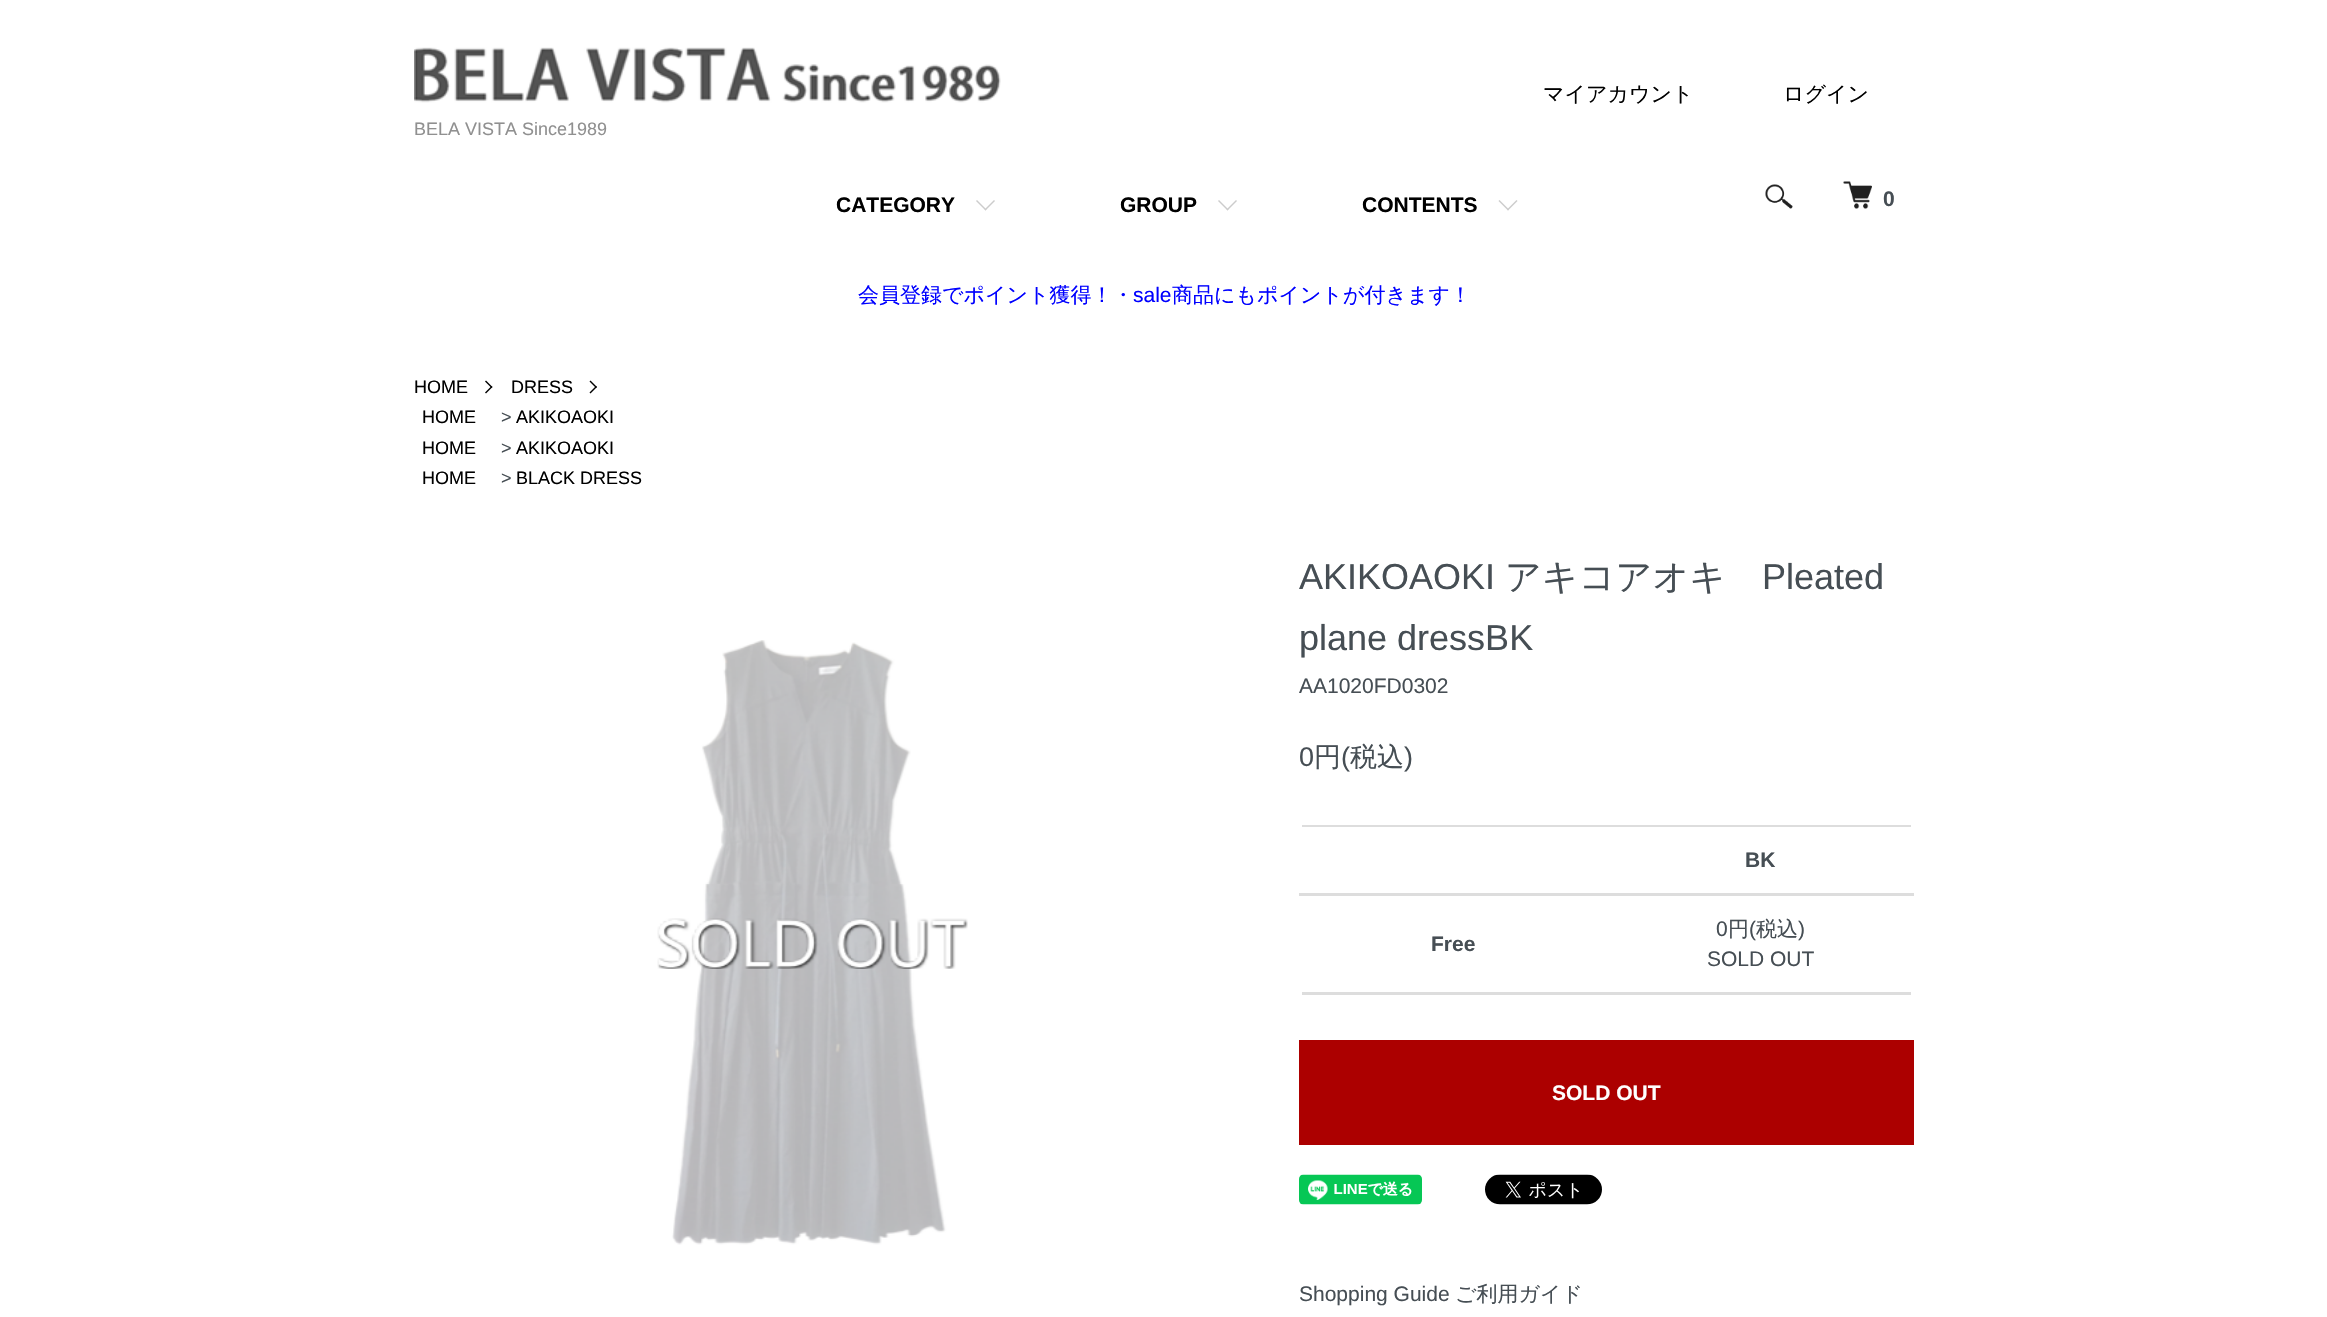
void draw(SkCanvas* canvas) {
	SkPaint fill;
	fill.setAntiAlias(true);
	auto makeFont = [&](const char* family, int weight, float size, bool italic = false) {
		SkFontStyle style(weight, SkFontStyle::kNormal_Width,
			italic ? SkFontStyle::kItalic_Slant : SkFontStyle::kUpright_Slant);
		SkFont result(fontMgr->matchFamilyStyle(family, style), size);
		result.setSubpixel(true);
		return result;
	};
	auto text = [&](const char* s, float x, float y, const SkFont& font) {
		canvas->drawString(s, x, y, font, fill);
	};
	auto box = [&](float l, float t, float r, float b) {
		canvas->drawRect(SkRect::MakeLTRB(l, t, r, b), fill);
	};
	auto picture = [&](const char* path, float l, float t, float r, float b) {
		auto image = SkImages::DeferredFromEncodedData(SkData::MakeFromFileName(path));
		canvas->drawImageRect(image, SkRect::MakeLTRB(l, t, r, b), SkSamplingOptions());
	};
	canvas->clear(0xFFFFFFFF);
	fill.setColor(0xFFCCCCCC);
	canvas->drawPath(SkPathBuilder().moveTo(994, 200).lineTo(995, 201).lineTo(985.5f, 210.5f).lineTo(984.5f, 209.5f).close().detach(), fill);
	canvas->drawPath(SkPathBuilder().moveTo(977, 200).lineTo(986.5f, 209.5f).lineTo(985.5f, 210.5f).lineTo(976, 201).close().detach(), fill);
	canvas->drawPath(SkPathBuilder().moveTo(1236, 200).lineTo(1237, 201).lineTo(1227.5f, 210.5f).lineTo(1226.5f, 209.5f).close().detach(), fill);
	canvas->drawPath(SkPathBuilder().moveTo(1219, 200).lineTo(1228.5f, 209.5f).lineTo(1227.5f, 210.5f).lineTo(1218, 201).close().detach(), fill);
	canvas->drawPath(SkPathBuilder().moveTo(1516.5f, 200).lineTo(1517.5f, 201).lineTo(1508, 210.5f).lineTo(1507, 209.5f).close().detach(), fill);
	canvas->drawPath(SkPathBuilder().moveTo(1499.5f, 200).lineTo(1509, 209.5f).lineTo(1508, 210.5f).lineTo(1498.5f, 201).close().detach(), fill);
	picture("image0.png", 414, 47, 1001, 103);
	picture("image1.png", 1765, 184, 1793, 209);
	picture("image2.png", 1843, 181, 1872, 209);
	fill.setColor(0xFF000000);
	canvas->drawPath(SkPathBuilder().moveTo(485, 381.5f).lineTo(486, 380.5f).lineTo(492.5f, 387).lineTo(491.5f, 388).close().detach(), fill);
	canvas->drawPath(SkPathBuilder().moveTo(485, 392.5f).lineTo(491.5f, 386).lineTo(492.5f, 387).lineTo(486, 393.5f).close().detach(), fill);
	canvas->drawPath(SkPathBuilder().moveTo(589.5f, 381.5f).lineTo(590.5f, 380.5f).lineTo(597, 387).lineTo(596, 388).close().detach(), fill);
	canvas->drawPath(SkPathBuilder().moveTo(589.5f, 392.5f).lineTo(596, 386).lineTo(597, 387).lineTo(590.5f, 393.5f).close().detach(), fill);
	picture("image3.png", 657, 640, 968, 1245);
	fill.setColor(0xFFDDDDDD);
	box(1302, 825, 1911, 827);
	box(1302, 994, 1911, 995);
	box(1299, 893, 1914, 894);
	box(1299, 894, 1914, 896);
	box(1302, 992, 1911, 994);
	fill.setColor(0xFFAC0000);
	box(1299, 1040, 1914, 1145);
	picture("image4.png", 1299, 1174, 1422, 1205);
	picture("image5.png", 1485, 1174, 1602, 1205);
	auto font1 = makeFont("WenQuanYi Zen Hei", 500, 21);
	fill.setColor(0xFF000000);
	text("マイアカウント", 1543, 101, font1);
	text("ログイン", 1783, 101, font1);
	auto font2 = makeFont("Liberation Sans", 700, 21);
	text("CATEGORY", 836, 212, font2);
	text("GROUP", 1120, 212, font2);
	text("CONTENTS", 1362, 212, font2);
	auto font3 = makeFont("Liberation Sans", 400, 18);
	fill.setColor(0xFF909090);
	text("BELA VISTA Since1989", 414, 135, font3);
	fill.setColor(0xFF464E54);
	text("0", 1883, 206, font2);
	fill.setColor(0xFF0000FF);
	text("会員登録でポイント獲得！・", 858, 302, font1);
	auto font4 = makeFont("Liberation Sans", 400, 21);
	text("sale", 1133, 302, font4);
	text("商品にもポイントが付きます！", 1172, 302, font1);
	fill.setColor(0xFF000000);
	text("HOME", 414, 393, font3);
	text("DRESS", 511, 393, font3);
	text("HOME", 422, 423, font3);
	fill.setColor(0xFF464E54);
	text(">", 501, 423, font3);
	fill.setColor(0xFF000000);
	text("AKIKOAOKI", 516, 423, font3);
	text("HOME", 422, 454, font3);
	fill.setColor(0xFF464E54);
	text(">", 501, 454, font3);
	fill.setColor(0xFF000000);
	text("AKIKOAOKI", 516, 454, font3);
	text("HOME", 422, 484, font3);
	fill.setColor(0xFF464E54);
	text(">", 501, 484, font3);
	fill.setColor(0xFF000000);
	text("BLACK DRESS", 516, 484, font3);
	auto font5 = makeFont("Liberation Sans", 400, 36);
	fill.setColor(0xFF464E54);
	text("AKIKOAOKI", 1299, 589, font5);
	auto font6 = makeFont("WenQuanYi Zen Hei", 500, 36);
	text("アキコアオキ", 1505, 589, font6);
	text("Pleated", 1762, 589, font5);
	text("plane dressBK", 1299, 650, font5);
	text("AA1020FD0302", 1299, 693, font4);
	auto font7 = makeFont("Liberation Sans", 400, 27);
	text("0", 1299, 766, font7);
	auto font8 = makeFont("WenQuanYi Zen Hei", 500, 27);
	text("円", 1314, 766, font8);
	text("(", 1341, 766, font7);
	text("税込", 1350, 766, font8);
	text(")", 1404, 766, font7);
	text("BK", 1745, 867, font2);
	text("Free", 1431, 951, font2);
	text("0", 1716, 936, font4);
	text("円", 1728, 936, font1);
	text("(", 1749, 936, font4);
	text("税込", 1756, 936, font1);
	text(")", 1798, 936, font4);
	text("SOLD OUT", 1707, 966, font4);
	fill.setColor(0xFFFFFFFF);
	text("SOLD OUT", 1552, 1100, font2);
	fill.setColor(0xFF464E54);
	text("Shopping Guide", 1299, 1301, font4);
	text("ご利用ガイド", 1455, 1301, font1);
}
